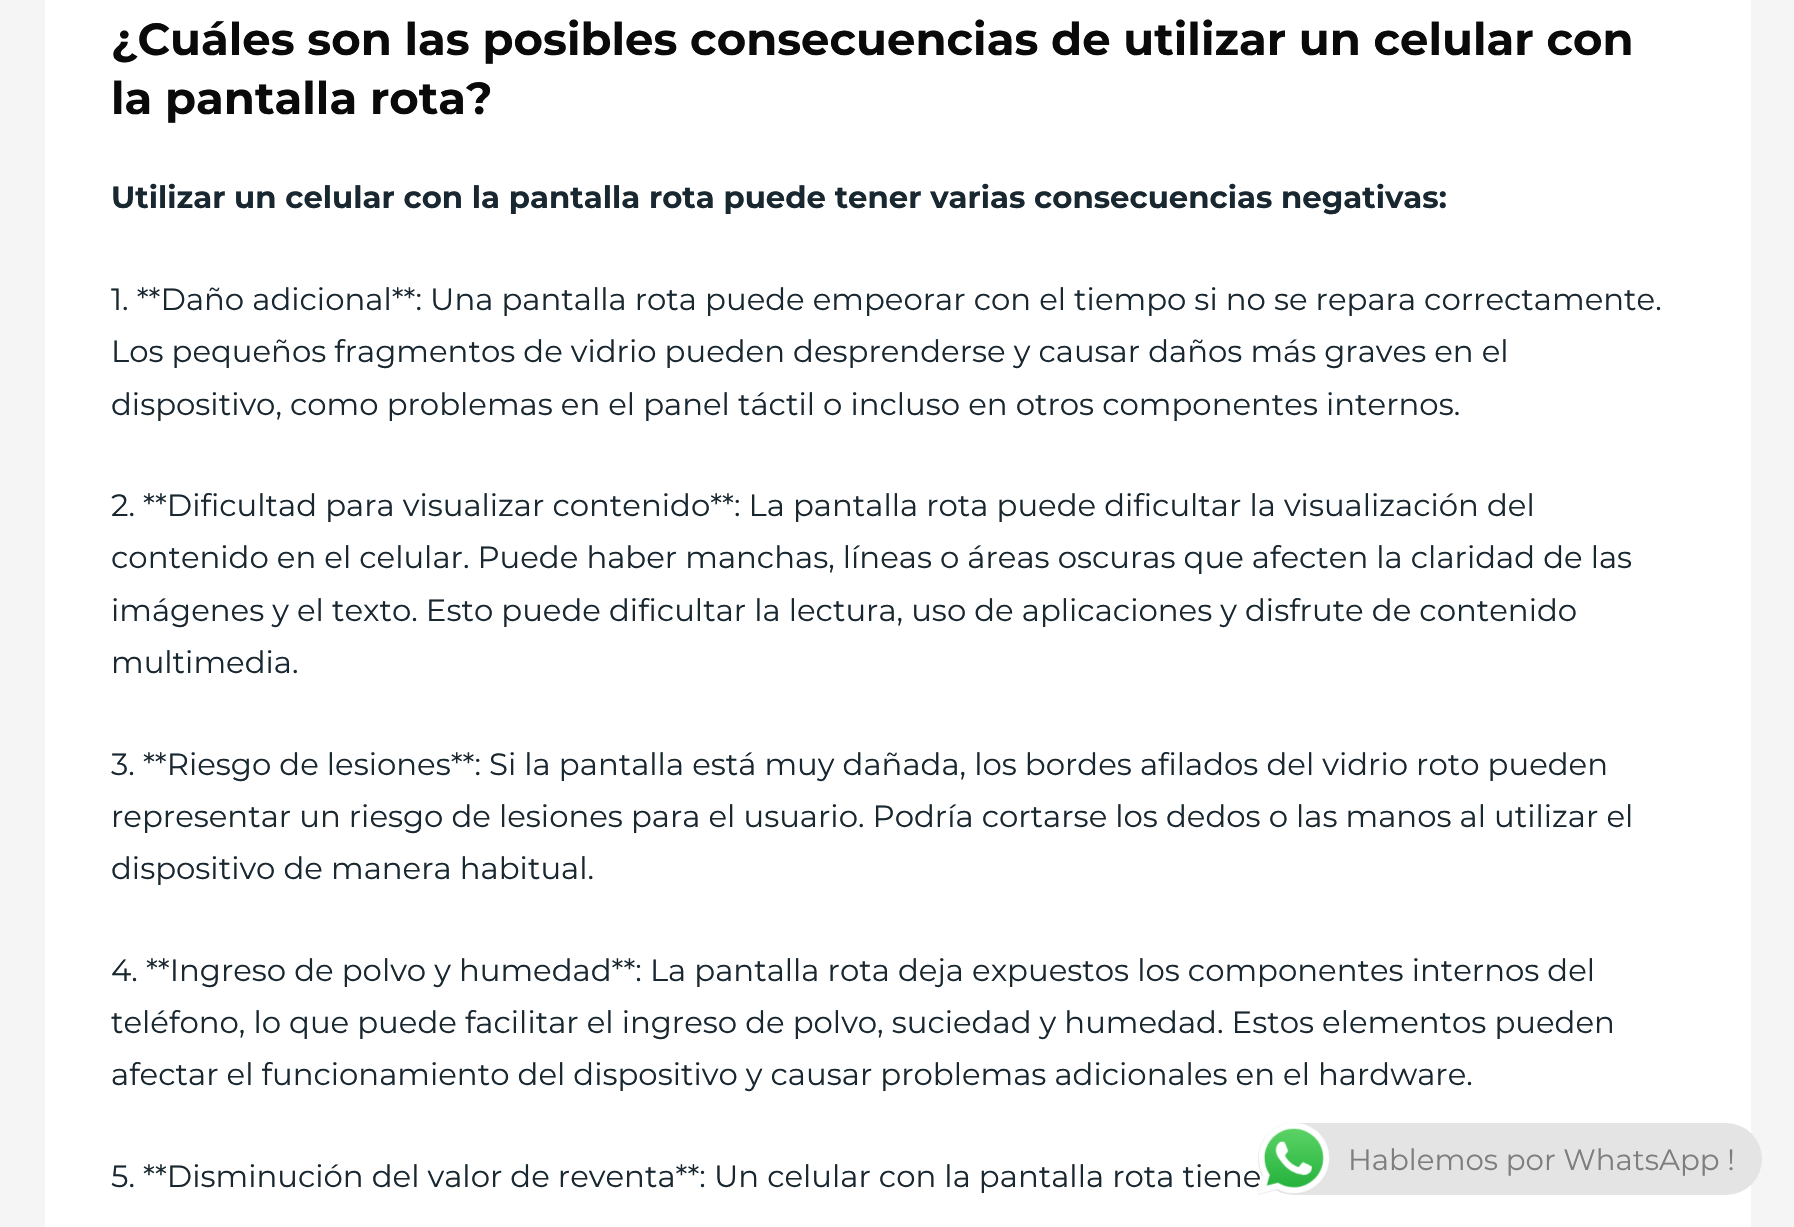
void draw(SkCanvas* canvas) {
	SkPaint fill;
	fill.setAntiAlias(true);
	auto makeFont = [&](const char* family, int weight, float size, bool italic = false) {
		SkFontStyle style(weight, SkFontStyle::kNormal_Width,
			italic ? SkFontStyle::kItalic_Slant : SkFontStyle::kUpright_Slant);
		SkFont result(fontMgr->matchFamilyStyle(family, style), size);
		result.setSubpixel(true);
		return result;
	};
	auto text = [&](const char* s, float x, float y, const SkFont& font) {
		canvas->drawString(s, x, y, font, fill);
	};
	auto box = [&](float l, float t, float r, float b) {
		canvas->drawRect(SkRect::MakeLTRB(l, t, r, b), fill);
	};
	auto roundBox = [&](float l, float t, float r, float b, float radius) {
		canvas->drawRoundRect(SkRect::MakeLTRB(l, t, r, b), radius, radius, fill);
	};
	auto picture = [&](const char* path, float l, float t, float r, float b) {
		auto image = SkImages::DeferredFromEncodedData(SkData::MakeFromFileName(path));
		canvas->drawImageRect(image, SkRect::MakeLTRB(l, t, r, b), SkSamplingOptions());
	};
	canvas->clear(0xFFF5F5F5);
	fill.setColor(0xFFFFFFFF);
	box(45, 0, 1751, 1227);
	auto font1 = makeFont("Montserrat", 700, 45);
	fill.setColor(0xFF0A0A0A);
	text("¿Cuáles son las posibles consecuencias de utilizar un celular con", 111, 55, font1);
	text("la pantalla rota?", 111, 114, font1);
	auto font2 = makeFont("Montserrat", 700, 30.78f);
	fill.setColor(0xFF192730);
	text("Utilizar un celular con la pantalla rota puede tener varias consecuencias negativas:", 111, 208, font2);
	auto font3 = makeFont("Montserrat", 400, 30.78f);
	text("1. **Daño adicional**: Una pantalla rota puede empeorar con el tiempo si no se repara correctamente.", 111, 310, font3);
	text("Los pequeños fragmentos de vidrio pueden desprenderse y causar daños más graves en el", 111, 362, font3);
	text("dispositivo, como problemas en el panel táctil o incluso en otros componentes internos.", 111, 415, font3);
	text("2. **Dificultad para visualizar contenido**: La pantalla rota puede dificultar la visualización del", 111, 516, font3);
	text("contenido en el celular. Puede haber manchas, líneas o áreas oscuras que afecten la claridad de las", 111, 568, font3);
	text("imágenes y el texto. Esto puede dificultar la lectura, uso de aplicaciones y disfrute de contenido", 111, 621, font3);
	text("multimedia.", 111, 673, font3);
	text("3. **Riesgo de lesiones**: Si la pantalla está muy dañada, los bordes afilados del vidrio roto pueden", 111, 775, font3);
	text("representar un riesgo de lesiones para el usuario. Podría cortarse los dedos o las manos al utilizar el", 111, 827, font3);
	text("dispositivo de manera habitual.", 111, 879, font3);
	text("4. **Ingreso de polvo y humedad**: La pantalla rota deja expuestos los componentes internos del", 111, 981, font3);
	text("teléfono, lo que puede facilitar el ingreso de polvo, suciedad y humedad. Estos elementos pueden", 111, 1033, font3);
	text("afectar el funcionamiento del dispositivo y causar problemas adicionales en el hardware.", 111, 1085, font3);
	text("5. **Disminución del valor de reventa**: Un celular con la pantalla rota tiene", 111, 1187, font3);
	fill.setColor(0xFFE4E4E4);
	roundBox(1258, 1123, 1762, 1195, 36);
	picture("image0.png", 1257, 1123, 1330, 1195);
	auto font4 = makeFont("Montserrat", 400, 29.25f);
	fill.setColor(0xFF7F7D7D);
	text("Hablemos por WhatsApp !", 1348, 1170, font4);
}
